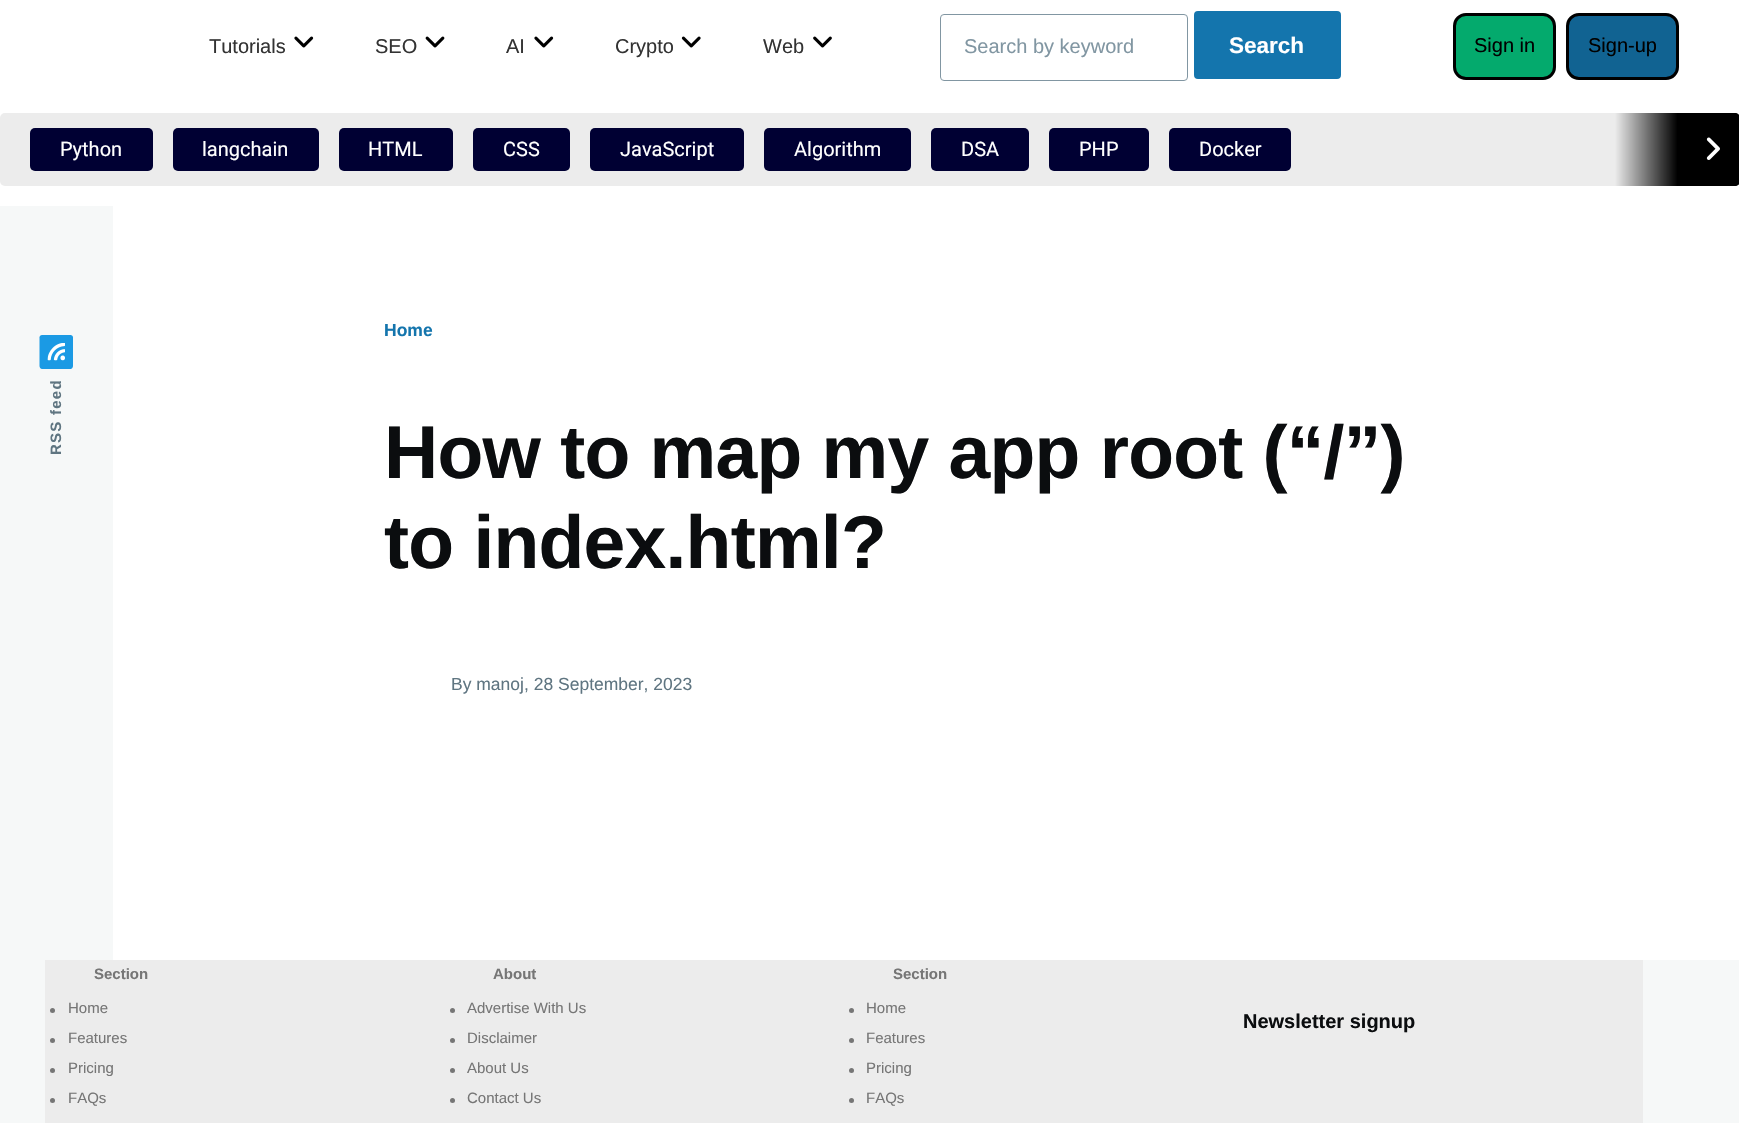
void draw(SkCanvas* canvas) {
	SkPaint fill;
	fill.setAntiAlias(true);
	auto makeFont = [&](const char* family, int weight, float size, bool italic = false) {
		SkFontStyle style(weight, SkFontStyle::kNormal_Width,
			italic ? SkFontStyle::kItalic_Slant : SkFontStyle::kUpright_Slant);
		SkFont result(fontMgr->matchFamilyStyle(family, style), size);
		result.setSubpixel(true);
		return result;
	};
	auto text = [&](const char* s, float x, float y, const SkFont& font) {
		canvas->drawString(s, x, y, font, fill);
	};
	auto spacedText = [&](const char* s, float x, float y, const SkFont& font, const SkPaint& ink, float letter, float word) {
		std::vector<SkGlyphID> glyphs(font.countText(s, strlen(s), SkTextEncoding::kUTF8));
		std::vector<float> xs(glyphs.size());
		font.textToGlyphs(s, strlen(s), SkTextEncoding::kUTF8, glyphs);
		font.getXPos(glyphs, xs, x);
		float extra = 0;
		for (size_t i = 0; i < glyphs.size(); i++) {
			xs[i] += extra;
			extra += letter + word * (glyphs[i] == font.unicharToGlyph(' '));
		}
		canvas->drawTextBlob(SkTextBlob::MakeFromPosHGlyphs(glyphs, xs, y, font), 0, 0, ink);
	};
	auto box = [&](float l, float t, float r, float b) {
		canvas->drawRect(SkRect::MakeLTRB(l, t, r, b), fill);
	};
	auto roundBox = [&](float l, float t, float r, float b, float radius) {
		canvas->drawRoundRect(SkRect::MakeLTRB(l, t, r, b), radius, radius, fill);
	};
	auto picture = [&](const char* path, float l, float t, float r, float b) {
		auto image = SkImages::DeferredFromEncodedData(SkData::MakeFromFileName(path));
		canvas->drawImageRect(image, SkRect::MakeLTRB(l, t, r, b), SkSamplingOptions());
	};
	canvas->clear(0xFFF6F8F8);
	fill.setColor(0xFFFFFFFF);
	box(0, 0, 1739, 960);
	picture("image0.png", 294, 36, 314, 48);
	picture("image1.png", 425, 36, 445, 48);
	picture("image0.png", 534, 36, 554, 48);
	picture("image2.png", 681, 36, 701, 48);
	picture("image3.png", 813, 36, 832, 48);
	fill.setStyle(SkPaint::kStroke_Style);
	fill.setStrokeWidth(1);
	fill.setColor(0xFF8196A2);
	canvas->drawRoundRect(SkRect::MakeLTRB(940.5f, 14.5f, 1187.5f, 80.5f), 3.5f, 3.5f, fill);
	fill.setStyle(SkPaint::kFill_Style);
	fill.setColor(0xFF1475AD);
	canvas->drawRoundRect(SkRect::MakeLTRB(1195.5f, 12.5f, 1339.5f, 77.5f), 2.5f, 2.5f, fill);
	fill.setStyle(SkPaint::kStroke_Style);
	fill.setStrokeWidth(3);
	canvas->drawRoundRect(SkRect::MakeLTRB(1195.5f, 12.5f, 1339.5f, 77.5f), 2.5f, 2.5f, fill);
	fill.setStyle(SkPaint::kFill_Style);
	fill.setColor(0xFF04AA6D);
	canvas->drawRoundRect(SkRect::MakeLTRB(1454.5f, 14.5f, 1554.5f, 78.5f), 11.5f, 11.5f, fill);
	fill.setStyle(SkPaint::kStroke_Style);
	fill.setColor(0xFF000000);
	canvas->drawRoundRect(SkRect::MakeLTRB(1454.5f, 14.5f, 1554.5f, 78.5f), 11.5f, 11.5f, fill);
	fill.setStyle(SkPaint::kFill_Style);
	fill.setColor(0xFF116392);
	canvas->drawRoundRect(SkRect::MakeLTRB(1567.5f, 14.5f, 1677.5f, 78.5f), 11.5f, 11.5f, fill);
	fill.setStyle(SkPaint::kStroke_Style);
	fill.setColor(0xFF000000);
	canvas->drawRoundRect(SkRect::MakeLTRB(1567.5f, 14.5f, 1677.5f, 78.5f), 11.5f, 11.5f, fill);
	fill.setStyle(SkPaint::kFill_Style);
	fill.setColor(0xFFECECEC);
	roundBox(0, 113, 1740, 186, 5);
	fill.setColor(0xFF000033);
	roundBox(30, 128, 153, 171, 5);
	roundBox(173, 128, 319, 171, 5);
	roundBox(339, 128, 453, 171, 5);
	roundBox(473, 128, 570, 171, 5);
	roundBox(590, 128, 744, 171, 5);
	roundBox(764, 128, 911, 171, 5);
	roundBox(931, 128, 1029, 171, 5);
	roundBox(1049, 128, 1149, 171, 5);
	roundBox(1169, 128, 1291, 171, 5);
	{
		const SkColor colors[] = {0xFF000000, 0x00000000};
		const float stops[] = {0.5f, 1};
		const SkPoint ends[] = {{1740, 149}, {1615, 149}};
		fill.setShader(SkGradientShader::MakeLinear(ends, colors, stops, 2, SkTileMode::kClamp));
		fill.setAlpha(255);
	}
	canvas->drawPath(SkPathBuilder().moveTo(1615, 113).lineTo(1735, 113).cubicTo(1738, 113, 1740, 115, 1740, 118).lineTo(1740, 181).cubicTo(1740, 184, 1738, 186, 1735, 186).lineTo(1615, 186).close().detach(), fill);
	picture("image4.png", 1706, 137, 1720, 160);
	fill.setShader(nullptr);
	fill.setColor(0xFFF6F8F8);
	box(0, 206, 113, 960);
	fill.setColor(0xFF1B9AE4);
	canvas->drawPath(SkPathBuilder().moveTo(39.5f, 366).lineTo(39.5f, 337.5f).cubicTo(39.5f, 336, 40.5f, 335, 42, 335).lineTo(70.5f, 335).cubicTo(72, 335, 73, 336, 73, 337.5f).lineTo(73, 366).cubicTo(73, 367.5f, 72, 369, 70.5f, 369).lineTo(42, 369).cubicTo(40.5f, 369, 39.5f, 367.5f, 39.5f, 366).close().detach(), fill);
	picture("image5.png", 47, 343, 65, 361);
	fill.setColor(0xFFECECEC);
	box(45, 960, 1643, 1123);
	fill.setColor(0xFF767676);
	canvas->drawCircle(52.5f, 1010.5f, 2.5f, fill);
	canvas->drawCircle(52.5f, 1040.5f, 2.5f, fill);
	canvas->drawCircle(52.5f, 1070.5f, 2.5f, fill);
	canvas->drawCircle(52.5f, 1100.5f, 2.5f, fill);
	canvas->drawCircle(452.5f, 1010.5f, 2.5f, fill);
	canvas->drawCircle(452.5f, 1040.5f, 2.5f, fill);
	canvas->drawCircle(452.5f, 1070.5f, 2.5f, fill);
	canvas->drawCircle(452.5f, 1100.5f, 2.5f, fill);
	canvas->drawCircle(851.5f, 1010.5f, 2.5f, fill);
	canvas->drawCircle(851.5f, 1040.5f, 2.5f, fill);
	canvas->drawCircle(851.5f, 1070.5f, 2.5f, fill);
	canvas->drawCircle(851.5f, 1100.5f, 2.5f, fill);
	auto font1 = makeFont("Liberation Sans", 400, 20);
	fill.setColor(0xFF333333);
	text("Tutorials", 209, 53, font1);
	text("SEO", 375, 53, font1);
	text("AI", 506, 53, font1);
	text("Crypto", 615, 53, font1);
	text("Web", 763, 53, font1);
	fill.setColor(0xFF8196A2);
	text("Search by keyword", 964, 53, font1);
	auto font2 = makeFont("Liberation Sans", 700, 22.5f);
	fill.setColor(0xFFFFFFFF);
	text("Search", 1229, 53, font2);
	fill.setColor(0xFF000000);
	text("Sign in", 1474, 52, font1);
	text("Sign-up", 1588, 52, font1);
	auto font3 = makeFont("Roboto", 400, 20);
	fill.setColor(0xFFFFFFFF);
	text("Python", 60, 156, font3);
	text("langchain", 202, 156, font3);
	text("HTML", 368, 156, font3);
	text("CSS", 503, 156, font3);
	text("JavaScript", 620, 156, font3);
	text("Algorithm", 794, 156, font3);
	text("DSA", 961, 156, font3);
	text("PHP", 1079, 156, font3);
	text("Docker", 1199, 156, font3);
	auto font4 = makeFont("Liberation Sans", 700, 15);
	fill.setColor(0xFF5F7581);
	canvas->save();
	canvas->rotate(-90, 61, 455);
	spacedText("RSS feed", 61, 455, font4, fill, 1.25f, 0);
	canvas->restore();
	auto font5 = makeFont("Liberation Sans", 700, 17.5f);
	fill.setColor(0xFF1475AD);
	text("Home", 384, 336, font5);
	auto font6 = makeFont("Liberation Sans", 700, 75);
	fill.setColor(0xFF0B0D0F);
	spacedText("How to map my app root (“/”)", 384, 478, font6, fill, -0.75f, 0);
	spacedText("to index.html?", 384, 568, font6, fill, -0.75f, 0);
	auto font7 = makeFont("Liberation Sans", 400, 17.5f);
	fill.setColor(0xFF5F7581);
	text("By manoj, 28 September, 2023", 451, 690, font7);
	fill.setColor(0xFF767676);
	text("Section", 94, 979, font4);
	auto font8 = makeFont("Liberation Sans", 400, 15);
	text("Home", 68, 1013, font8);
	text("Features", 68, 1043, font8);
	text("Pricing", 68, 1073, font8);
	text("FAQs", 68, 1103, font8);
	text("About", 493, 979, font4);
	text("Advertise With Us", 467, 1013, font8);
	text("Disclaimer", 467, 1043, font8);
	text("About Us", 467, 1073, font8);
	text("Contact Us", 467, 1103, font8);
	text("Section", 893, 979, font4);
	text("Home", 866, 1013, font8);
	text("Features", 866, 1043, font8);
	text("Pricing", 866, 1073, font8);
	text("FAQs", 866, 1103, font8);
	auto font9 = makeFont("Liberation Sans", 700, 20);
	fill.setColor(0xFF0B0D0F);
	text("Newsletter signup", 1243, 1028, font9);
}
